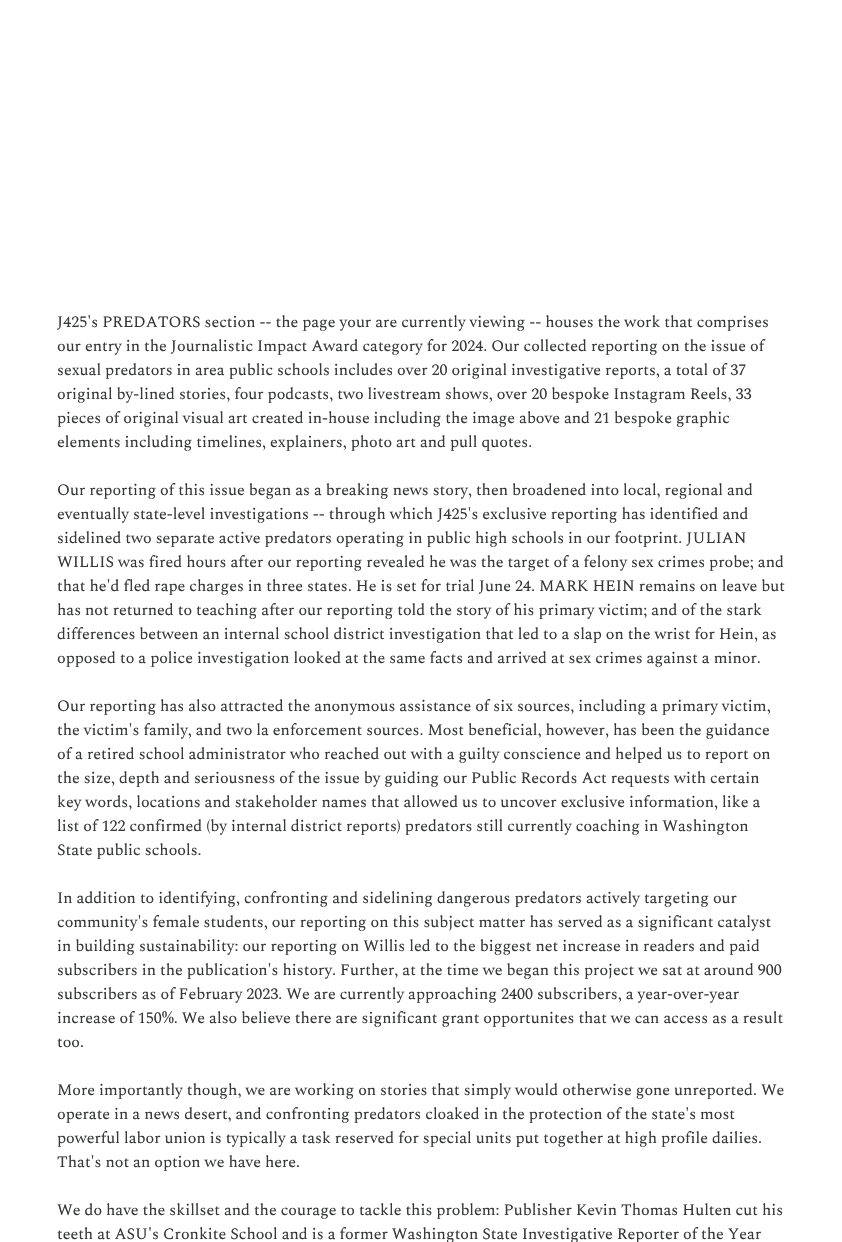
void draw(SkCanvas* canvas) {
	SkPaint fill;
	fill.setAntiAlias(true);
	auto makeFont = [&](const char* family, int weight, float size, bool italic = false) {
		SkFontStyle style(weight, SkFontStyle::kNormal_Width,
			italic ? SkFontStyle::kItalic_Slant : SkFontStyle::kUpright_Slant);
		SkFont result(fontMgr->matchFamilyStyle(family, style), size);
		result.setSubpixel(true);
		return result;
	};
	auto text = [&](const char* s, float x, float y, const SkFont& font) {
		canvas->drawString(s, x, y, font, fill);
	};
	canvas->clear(0xFFFFFFFF);
	auto font1 = makeFont("Spectral", 400, 16);
	fill.setColor(0xFF363737);
	text("J425's PREDATORS section -- the page your are currently viewing -- houses the work that comprises", 57, 327, font1);
	text("our entry in the Journalistic Impact Award category for 2024. Our collected reporting on the issue of", 57, 351, font1);
	text("sexual predators in area public schools includes over 20 original investigative reports, a total of 37", 57, 375, font1);
	text("original by-lined stories, four podcasts, two livestream shows, over 20 bespoke Instagram Reels, 33", 57, 399, font1);
	text("pieces of original visual art created in-house including the image above and 21 bespoke graphic", 57, 423, font1);
	text("elements including timelines, explainers, photo art and pull quotes.", 57, 447, font1);
	text("Our reporting of this issue began as a breaking news story, then broadened into local, regional and", 57, 495, font1);
	text("eventually state-level investigations -- through which J425's exclusive reporting has identified and", 57, 519, font1);
	text("sidelined two separate active predators operating in public high schools in our footprint. JULIAN", 57, 543, font1);
	text("WILLIS was fired hours after our reporting revealed he was the target of a felony sex crimes probe; and", 57, 567, font1);
	text("that he'd fled rape charges in three states. He is set for trial June 24. MARK HEIN remains on leave but", 57, 591, font1);
	text("has not returned to teaching after our reporting told the story of his primary victim; and of the stark", 57, 615, font1);
	text("differences between an internal school district investigation that led to a slap on the wrist for Hein, as", 57, 639, font1);
	text("opposed to a police investigation looked at the same facts and arrived at sex crimes against a minor.", 57, 663, font1);
	text("Our reporting has also attracted the anonymous assistance of six sources, including a primary victim,", 57, 711, font1);
	text("the victim's family, and two la enforcement sources. Most beneficial, however, has been the guidance", 57, 735, font1);
	text("of a retired school administrator who reached out with a guilty conscience and helped us to report on", 57, 759, font1);
	text("the size, depth and seriousness of the issue by guiding our Public Records Act requests with certain", 57, 783, font1);
	text("key words, locations and stakeholder names that allowed us to uncover exclusive information, like a", 57, 807, font1);
	text("list of 122 confirmed (by internal district reports) predators still currently coaching in Washington", 57, 831, font1);
	text("State public schools.", 57, 855, font1);
	text("In addition to identifying, confronting and sidelining dangerous predators actively targeting our", 57, 903, font1);
	text("community's female students, our reporting on this subject matter has served as a significant catalyst", 57, 927, font1);
	text("in building sustainability: our reporting on Willis led to the biggest net increase in readers and paid", 57, 951, font1);
	text("subscribers in the publication's history. Further, at the time we began this project we sat at around 900", 57, 975, font1);
	text("subscribers as of February 2023. We are currently approaching 2400 subscribers, a year-over-year", 57, 999, font1);
	text("increase of 150%. We also believe there are significant grant opportunites that we can access as a result", 57, 1023, font1);
	text("too.", 57, 1047, font1);
	text("More importantly though, we are working on stories that simply would otherwise gone unreported. We", 57, 1095, font1);
	text("operate in a news desert, and confronting predators cloaked in the protection of the state's most", 57, 1119, font1);
	text("powerful labor union is typically a task reserved for special units put together at high profile dailies.", 57, 1143, font1);
	text("That's not an option we have here.", 57, 1167, font1);
	text("We do have the skillset and the courage to tackle this problem: Publisher Kevin Thomas Hulten cut his", 57, 1215, font1);
	text("teeth at ASU's Cronkite School and is a former Washington State Investigative Reporter of the Year", 57, 1239, font1);
}
